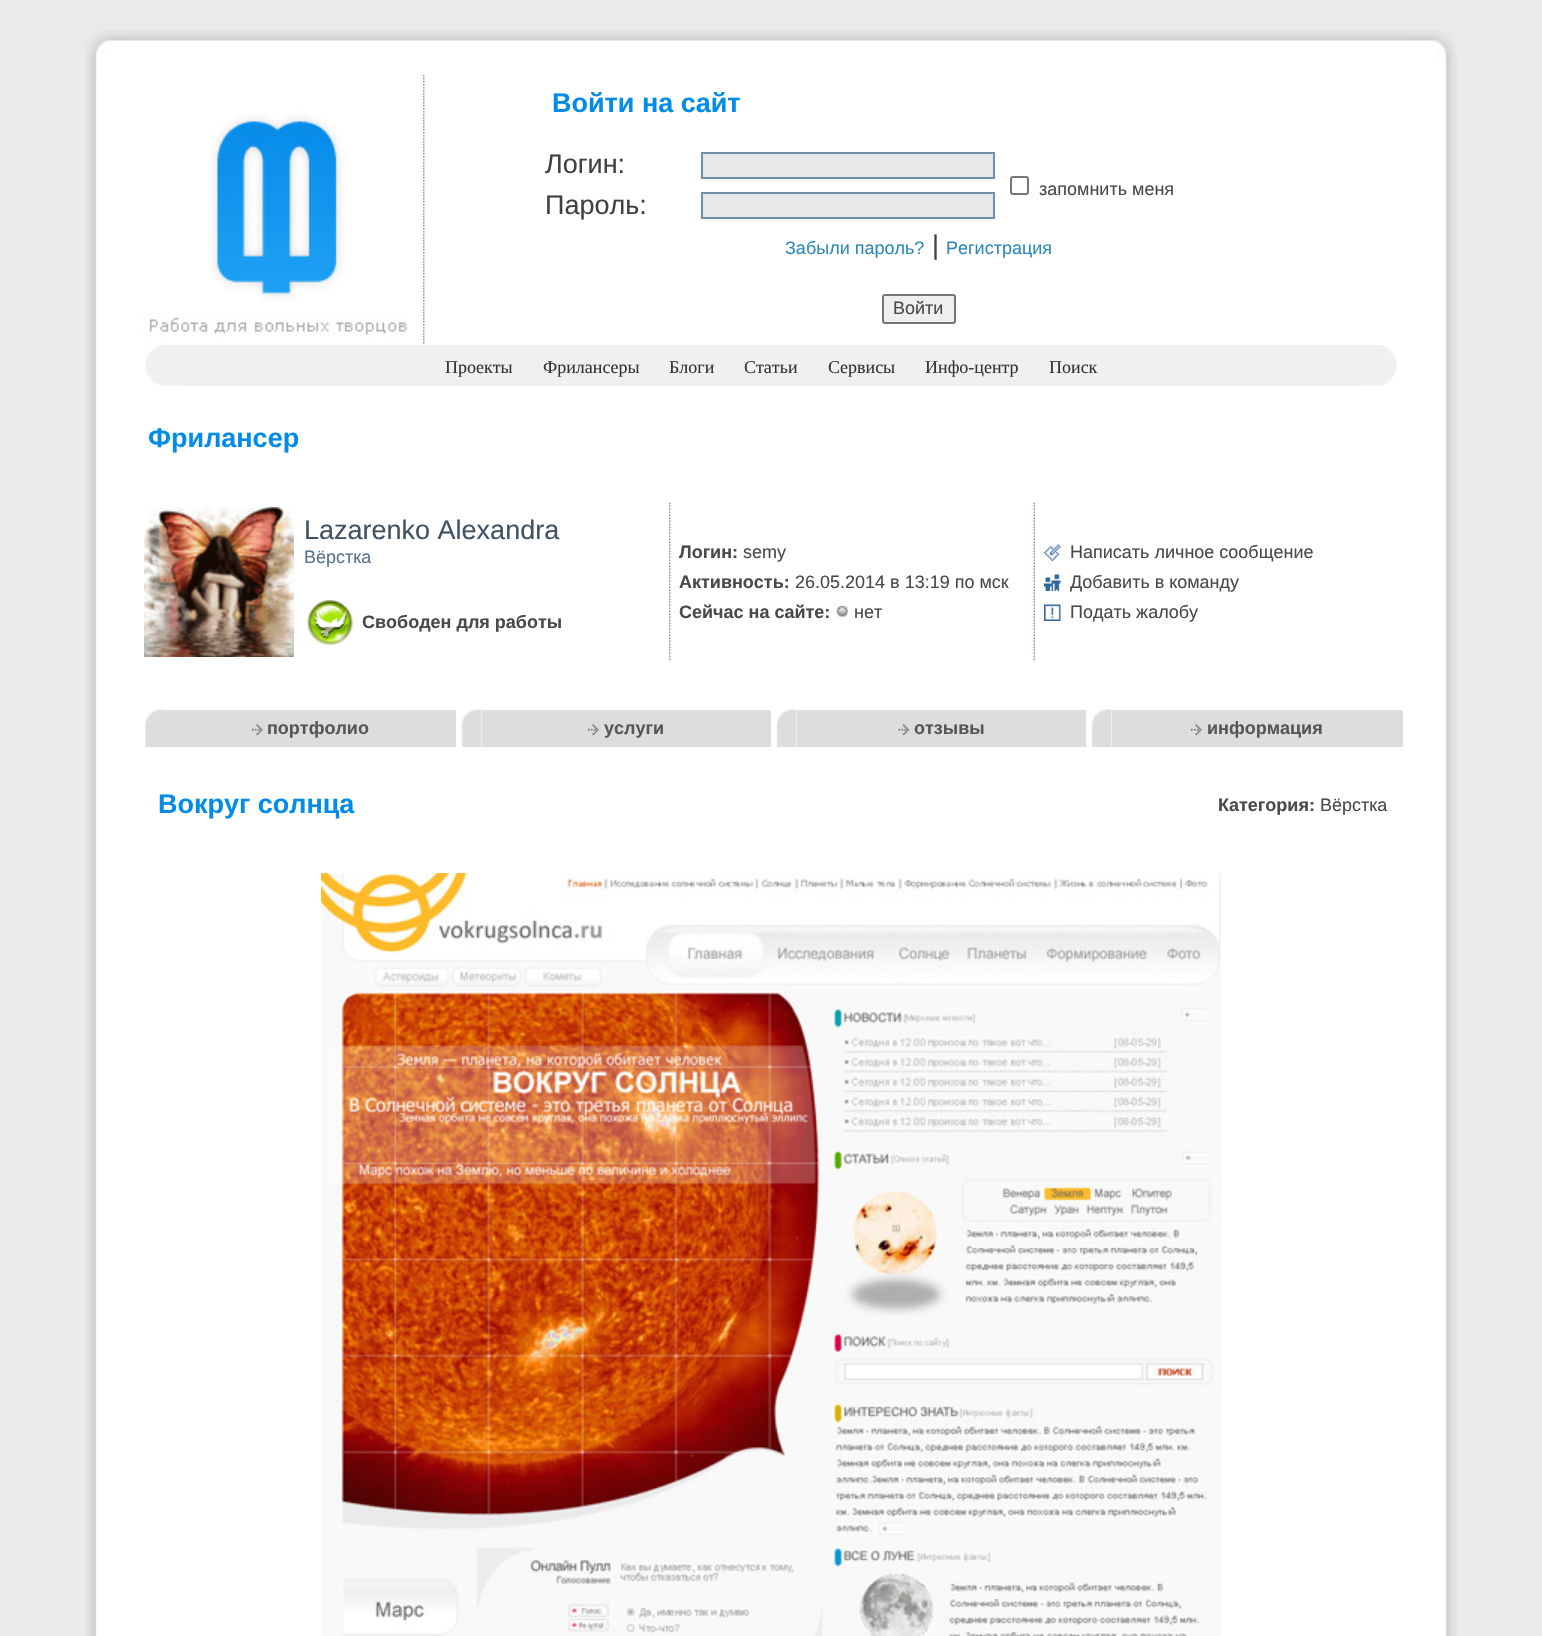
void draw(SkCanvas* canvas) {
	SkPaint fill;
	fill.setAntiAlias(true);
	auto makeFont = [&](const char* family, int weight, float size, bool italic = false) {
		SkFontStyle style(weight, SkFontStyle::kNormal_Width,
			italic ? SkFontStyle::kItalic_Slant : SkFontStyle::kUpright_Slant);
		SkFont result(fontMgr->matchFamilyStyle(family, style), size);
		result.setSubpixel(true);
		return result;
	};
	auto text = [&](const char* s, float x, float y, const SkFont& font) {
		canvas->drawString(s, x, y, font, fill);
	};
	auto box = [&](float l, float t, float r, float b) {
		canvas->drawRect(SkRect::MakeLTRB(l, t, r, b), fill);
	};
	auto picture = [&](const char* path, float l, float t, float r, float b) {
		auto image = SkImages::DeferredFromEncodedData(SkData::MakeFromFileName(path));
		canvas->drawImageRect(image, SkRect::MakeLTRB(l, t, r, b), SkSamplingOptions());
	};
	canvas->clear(0xFFEAEAEA);
	picture("image0.png", 85, 30, 129, 75);
	picture("image1.png", 129, 30, 1413, 75);
	picture("image2.png", 1413, 30, 1457, 75);
	picture("image3.png", 85, 75, 129, 1636);
	fill.setColor(0xFFFFFFFF);
	box(129, 75, 1413, 1636);
	picture("image4.png", 423, 75, 425, 345);
	picture("image5.png", 143, 111, 407, 337);
	fill.setColor(0xFFE8E8E8);
	canvas->drawRect(SkRect::MakeLTRB(702, 153, 994, 178), fill);
	fill.setStyle(SkPaint::kStroke_Style);
	fill.setStrokeWidth(2);
	fill.setColor(0xFF708FAC);
	canvas->drawRect(SkRect::MakeLTRB(702, 153, 994, 178), fill);
	fill.setColor(0xFF767676);
	canvas->drawRoundRect(SkRect::MakeLTRB(1011, 177, 1028, 194), 2, 2, fill);
	fill.setStyle(SkPaint::kFill_Style);
	fill.setColor(0xFFE8E8E8);
	canvas->drawRect(SkRect::MakeLTRB(702, 193, 994, 218), fill);
	fill.setStyle(SkPaint::kStroke_Style);
	fill.setColor(0xFF708FAC);
	canvas->drawRect(SkRect::MakeLTRB(702, 193, 994, 218), fill);
	fill.setStyle(SkPaint::kFill_Style);
	fill.setColor(0xFFEFEFEF);
	canvas->drawRoundRect(SkRect::MakeLTRB(883, 295, 955, 323), 2, 2, fill);
	fill.setStyle(SkPaint::kStroke_Style);
	fill.setColor(0xFF767676);
	canvas->drawRoundRect(SkRect::MakeLTRB(883, 295, 955, 323), 2, 2, fill);
	picture("image6.png", 145, 345, 180, 386);
	fill.setStyle(SkPaint::kFill_Style);
	fill.setColor(0xFFF0F0F0);
	box(180, 345, 1362, 386);
	picture("image7.png", 1362, 345, 1397, 386);
	picture("image8.png", 144, 507, 294, 657);
	picture("image9.png", 669, 502, 671, 662);
	picture("image10.png", 307, 600, 353, 645);
	picture("image11.png", 1033, 502, 1035, 662);
	picture("image12.png", 836, 605, 848, 617);
	picture("image13.png", 1044, 544, 1061, 561);
	picture("image14.png", 1044, 574, 1061, 591);
	picture("image15.png", 1044, 604, 1061, 621);
	picture("image16.png", 145, 709, 165, 747);
	fill.setColor(0xFFDDDDDD);
	box(165, 710, 456, 747);
	picture("image17.png", 252, 724, 263, 735);
	picture("image18.png", 461, 709, 482, 747);
	box(482, 710, 771, 747);
	picture("image19.png", 588, 724, 599, 735);
	picture("image20.png", 776, 709, 797, 747);
	box(797, 710, 1086, 747);
	picture("image21.png", 898, 724, 909, 735);
	picture("image18.png", 1091, 709, 1112, 747);
	box(1112, 710, 1403, 747);
	picture("image19.png", 1191, 724, 1202, 735);
	picture("image22.png", 321, 873, 1221, 1636);
	picture("image23.png", 1413, 75, 1457, 1636);
	auto font1 = makeFont("Liberation Sans", 700, 27);
	fill.setColor(0xFF038CE7);
	text("Войти на сайт", 552, 112, font1);
	auto font2 = makeFont("Liberation Sans", 400, 27);
	fill.setColor(0xFF414141);
	text("Логин:", 545, 173, font2);
	auto font3 = makeFont("Liberation Sans", 400, 18);
	fill.setColor(0xFF494949);
	text("запомнить меня", 1039, 195, font3);
	fill.setColor(0xFF414141);
	text("Пароль:", 545, 214, font2);
	fill.setColor(0xFF2D89BB);
	text("Забыли пароль?", 785, 254, font3);
	fill.setColor(0xFF414141);
	text("|", 932, 254, font2);
	fill.setColor(0xFF2D89BB);
	text("Регистрация", 946, 254, font3);
	fill.setColor(0xFF494949);
	text("Войти", 893, 314, font3);
	auto font4 = makeFont("Liberation Serif", 400, 18);
	fill.setColor(0xFF333333);
	text("Проекты", 445, 373, font4);
	text("Фрилансеры", 543, 373, font4);
	text("Блоги", 669, 373, font4);
	text("Статьи", 744, 373, font4);
	text("Сервисы", 828, 373, font4);
	text("Инфо-центр", 925, 373, font4);
	text("Поиск", 1049, 373, font4);
	fill.setColor(0xFF038CE7);
	text("Фрилансер", 148, 447, font1);
	fill.setColor(0xFF405264);
	text("Lazarenko Alexandra", 304, 539, font2);
	fill.setColor(0xFF547392);
	text("Вёрстка", 304, 563, font3);
	auto font5 = makeFont("Liberation Sans", 700, 18);
	fill.setColor(0xFF494949);
	text("Свободен для работы", 362, 628, font5);
	text("Логин:", 679, 558, font5);
	text("semy", 743, 558, font3);
	text("Активность:", 679, 588, font5);
	text("26.05.2014 в 13:19 по мск", 795, 588, font3);
	text("Сейчас на сайте:", 679, 618, font5);
	text("нет", 854, 618, font3);
	text("Написать личное сообщение", 1070, 558, font3);
	text("Добавить в команду", 1070, 588, font3);
	text("Подать жалобу", 1070, 618, font3);
	fill.setColor(0xFF575555);
	text("портфолио", 267, 734, font5);
	text("услуги", 604, 734, font5);
	text("отзывы", 914, 734, font5);
	text("информация", 1207, 734, font5);
	fill.setColor(0xFF038CE7);
	text("Вокруг солнца", 158, 813, font1);
	fill.setColor(0xFF494949);
	text("Категория:", 1218, 811, font5);
	text("Вёрстка", 1320, 811, font3);
}
